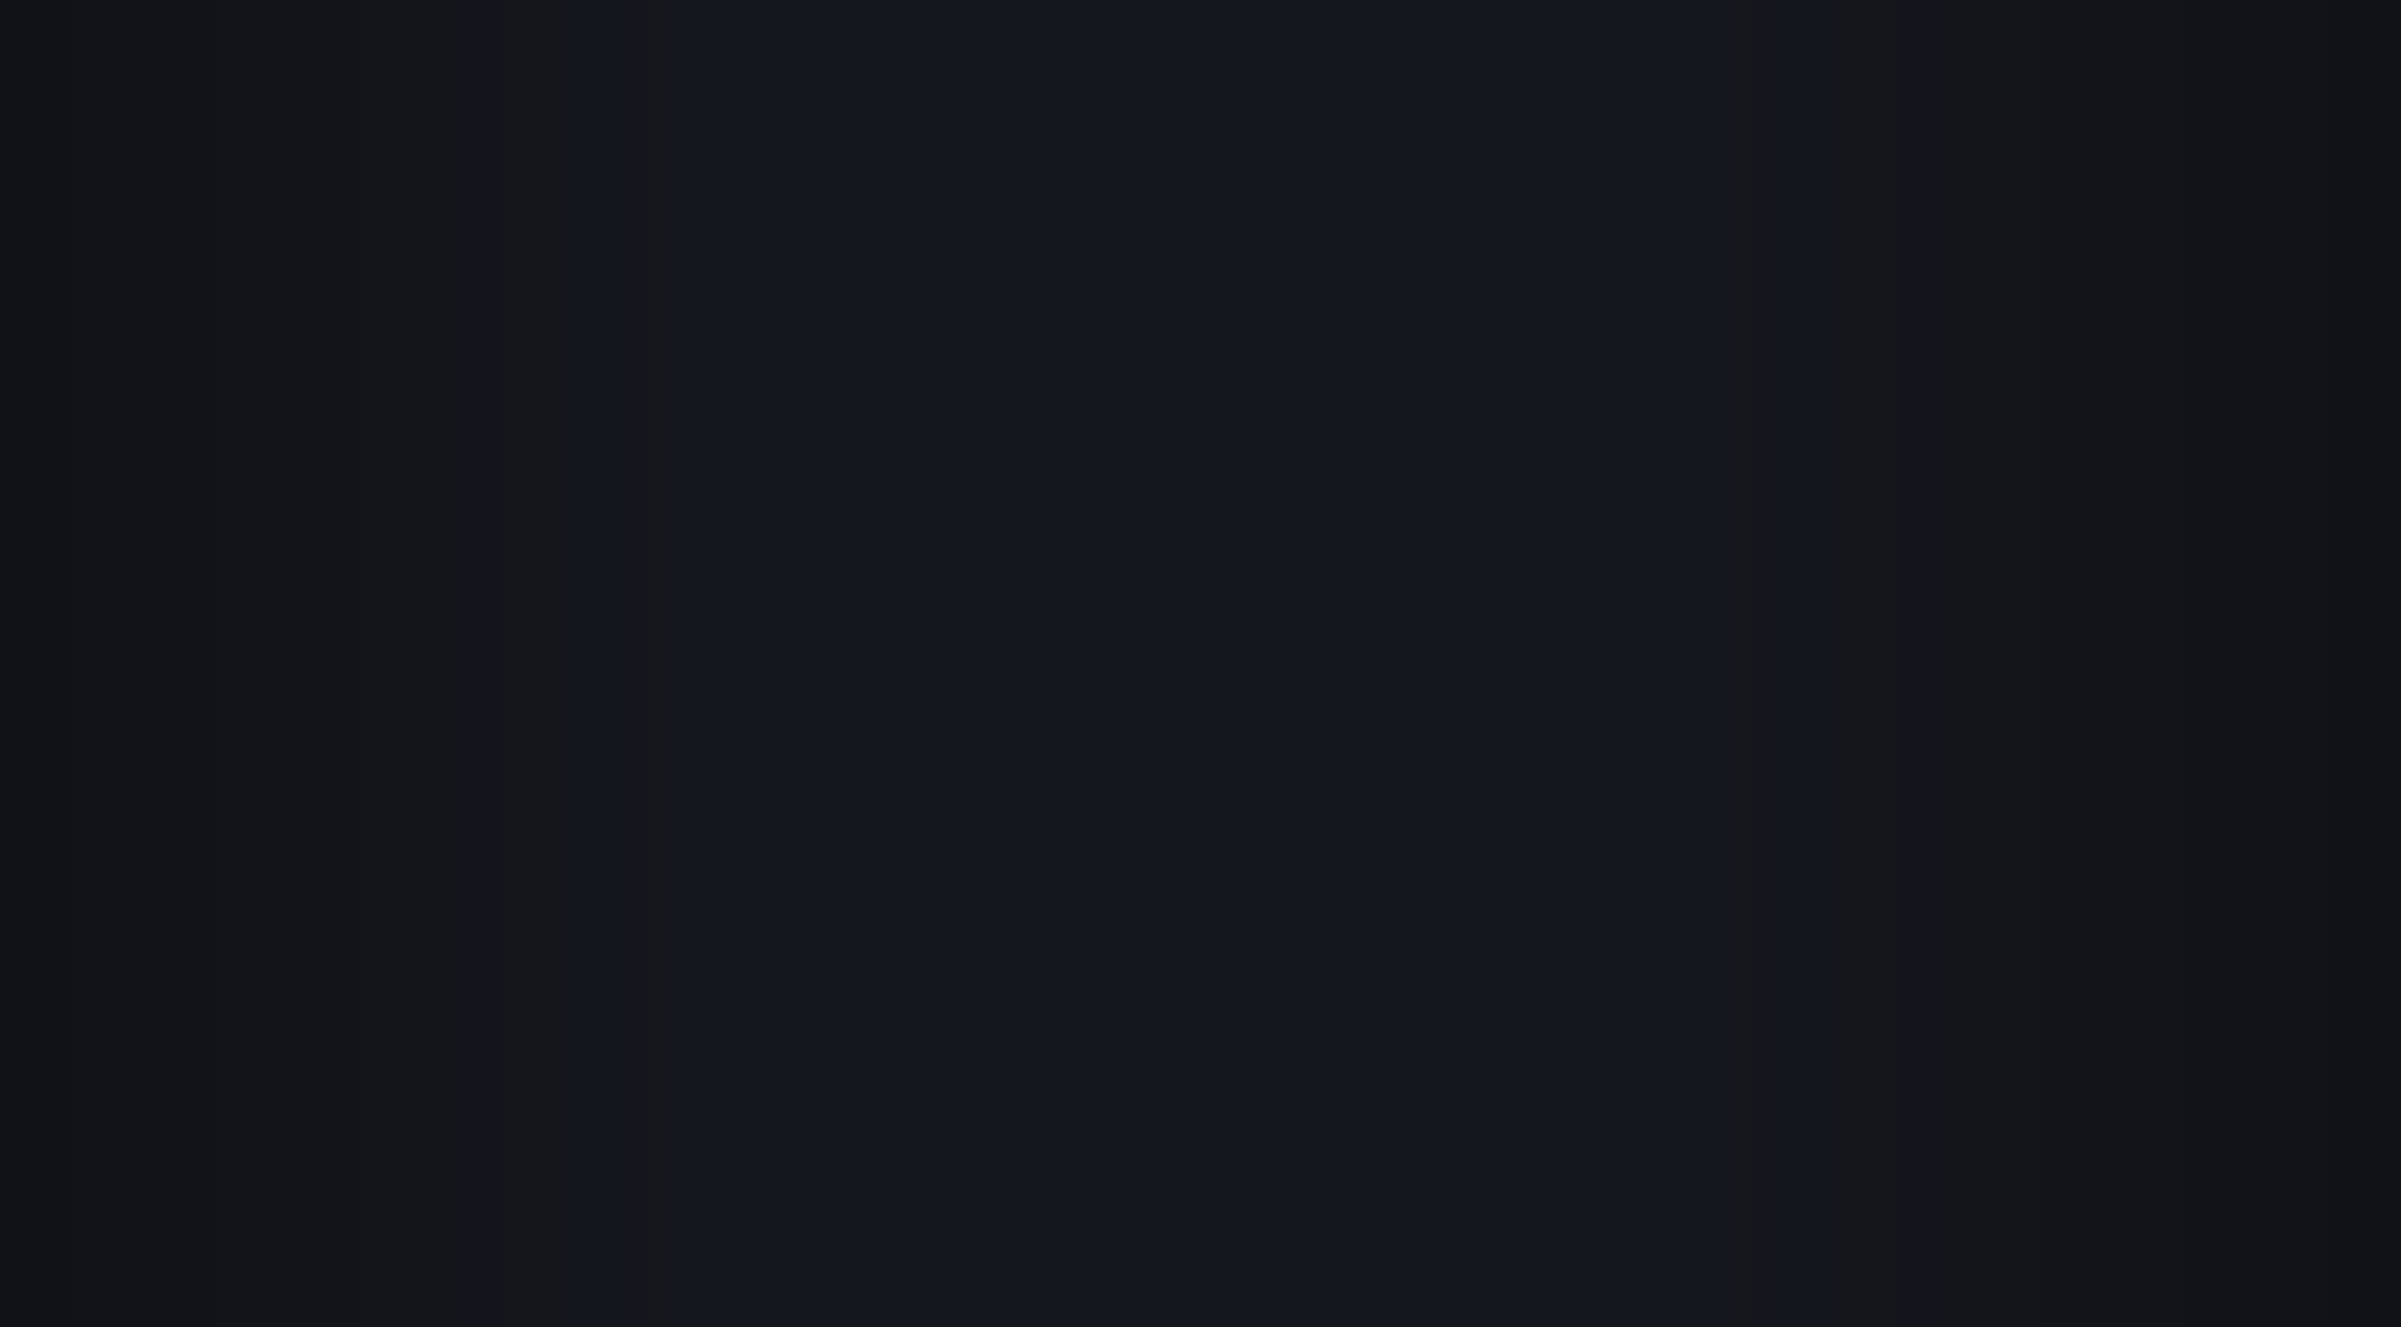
void draw(SkCanvas* canvas) {
	SkPaint fill;
	fill.setAntiAlias(true);
	auto box = [&](float l, float t, float r, float b) {
		canvas->drawRect(SkRect::MakeLTRB(l, t, r, b), fill);
	};
	canvas->clear(0xFFFFFFFF);
	{
		const SkColor colors[] = {0xFF111217, 0xFF15171E, 0xFF15171E, 0xFF111217};
		const float stops[] = {0, 0.3f, 0.7f, 1};
		const SkPoint ends[] = {{0, 664}, {2401, 664}};
		fill.setShader(SkGradientShader::MakeLinear(ends, colors, stops, 4, SkTileMode::kClamp));
		fill.setAlpha(255);
	}
	box(0, 0, 2401, 1327);
}
